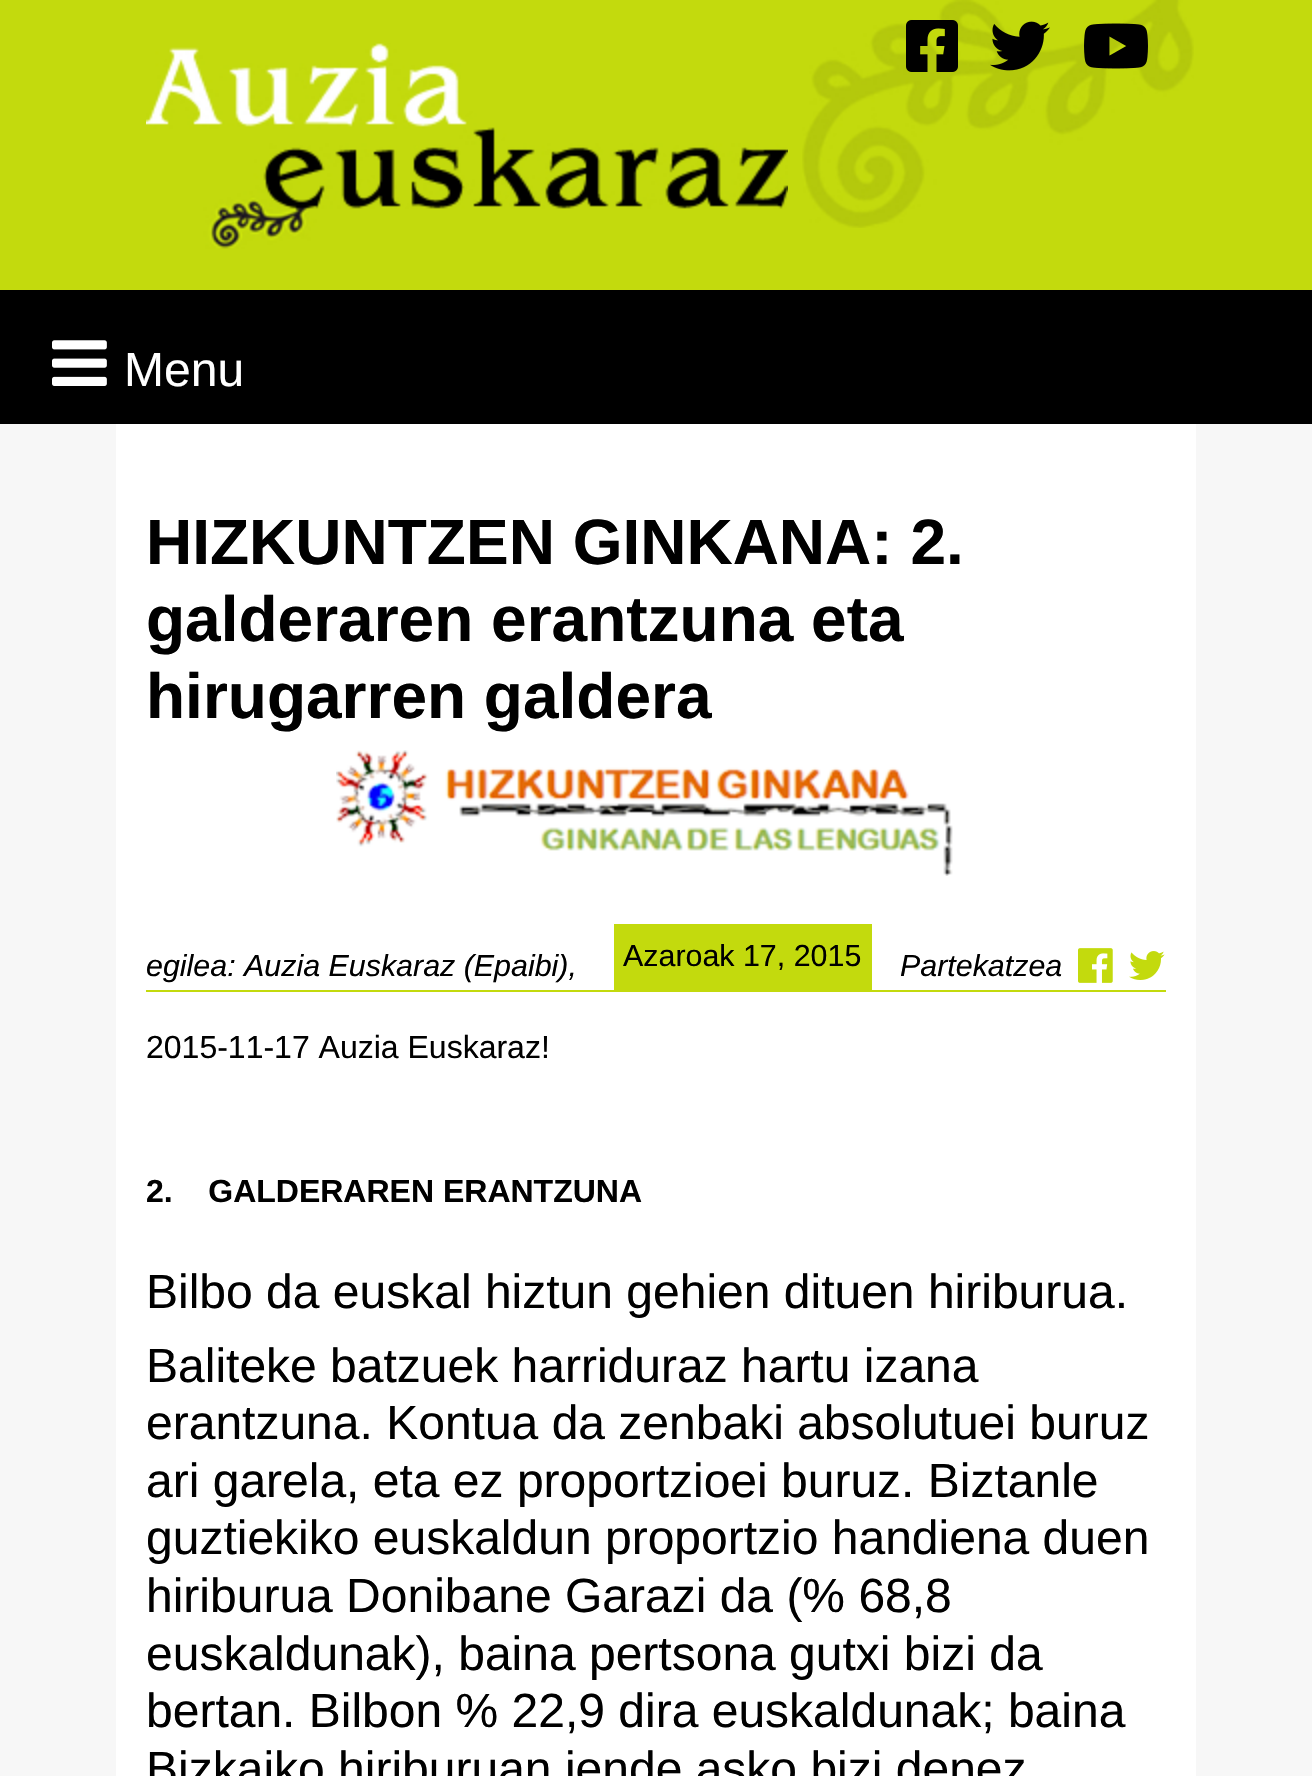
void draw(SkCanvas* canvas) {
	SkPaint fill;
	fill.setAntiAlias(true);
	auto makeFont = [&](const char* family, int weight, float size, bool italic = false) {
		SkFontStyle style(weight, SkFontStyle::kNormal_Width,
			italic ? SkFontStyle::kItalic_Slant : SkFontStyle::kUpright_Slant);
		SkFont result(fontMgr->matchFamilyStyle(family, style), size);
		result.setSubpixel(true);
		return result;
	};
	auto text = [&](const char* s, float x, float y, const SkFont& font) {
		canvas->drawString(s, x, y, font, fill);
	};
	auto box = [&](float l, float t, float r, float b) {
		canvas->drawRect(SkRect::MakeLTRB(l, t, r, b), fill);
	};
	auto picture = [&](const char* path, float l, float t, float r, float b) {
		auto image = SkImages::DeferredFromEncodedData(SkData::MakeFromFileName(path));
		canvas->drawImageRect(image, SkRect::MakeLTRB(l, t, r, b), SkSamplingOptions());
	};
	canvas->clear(0xFFC3DA0D);
	picture("image0.png", 802, 0, 1194, 228);
	picture("image1.png", 146, 43, 788, 249);
	picture("image2.png", 906, 20, 958, 72);
	picture("image3.png", 990, 21, 1050, 71);
	picture("image4.png", 1084, 23, 1148, 69);
	fill.setColor(0xFF000000);
	box(0, 290, 1312, 424);
	picture("image5.png", 52, 340, 107, 386);
	fill.setColor(0xFFF7F7F7);
	box(0, 424, 1312, 1776);
	fill.setColor(0xFFFFFFFF);
	box(116, 424, 1196, 1776);
	picture("image6.png", 336, 750, 953, 876);
	fill.setColor(0xFFC3DA0D);
	box(146, 990, 1166, 992);
	box(614, 924, 872, 990);
	picture("image7.png", 1078, 948, 1113, 983);
	picture("image8.png", 1129, 951, 1165, 980);
	auto font1 = makeFont("Liberation Sans", 400, 48);
	fill.setColor(0xFFFFFFFF);
	text("Menu", 124, 386, font1);
	auto font2 = makeFont("Liberation Sans", 700, 64);
	fill.setColor(0xFF000000);
	text("HIZKUNTZEN GINKANA: 2.", 146, 564, font2);
	text("galderaren erantzuna eta", 146, 641, font2);
	text("hirugarren galdera", 146, 718, font2);
	auto font3 = makeFont("Liberation Sans", 400, 30.4f, true);
	text("egilea: Auzia Euskaraz (Epaibi),", 146, 976, font3);
	auto font4 = makeFont("Liberation Sans", 400, 30.4f);
	text("Azaroak 17, 2015", 623, 966, font4);
	text("Partekatzea", 900, 976, font3);
	auto font5 = makeFont("Liberation Sans", 400, 32);
	text("2015-11-17 Auzia Euskaraz!", 146, 1058, font5);
	auto font6 = makeFont("Liberation Sans", 700, 32);
	text("2.    GALDERAREN ERANTZUNA", 146, 1202, font6);
	text("Bilbo da euskal hiztun gehien dituen hiriburua.", 146, 1308, font1);
	text("Baliteke batzuek harriduraz hartu izana", 146, 1382, font1);
	text("erantzuna. Kontua da zenbaki absolutuei buruz", 146, 1439, font1);
	text("ari garela, eta ez proportzioei buruz. Biztanle", 146, 1497, font1);
	text("guztiekiko euskaldun proportzio handiena duen", 146, 1554, font1);
	text("hiriburua Donibane Garazi da (% 68,8", 146, 1612, font1);
	text("euskaldunak), baina pertsona gutxi bizi da", 146, 1670, font1);
	text("bertan. Bilbon % 22,9 dira euskaldunak; baina", 146, 1727, font1);
	text("Bizkaiko hiriburuan jende asko bizi denez", 146, 1785, font1);
}
